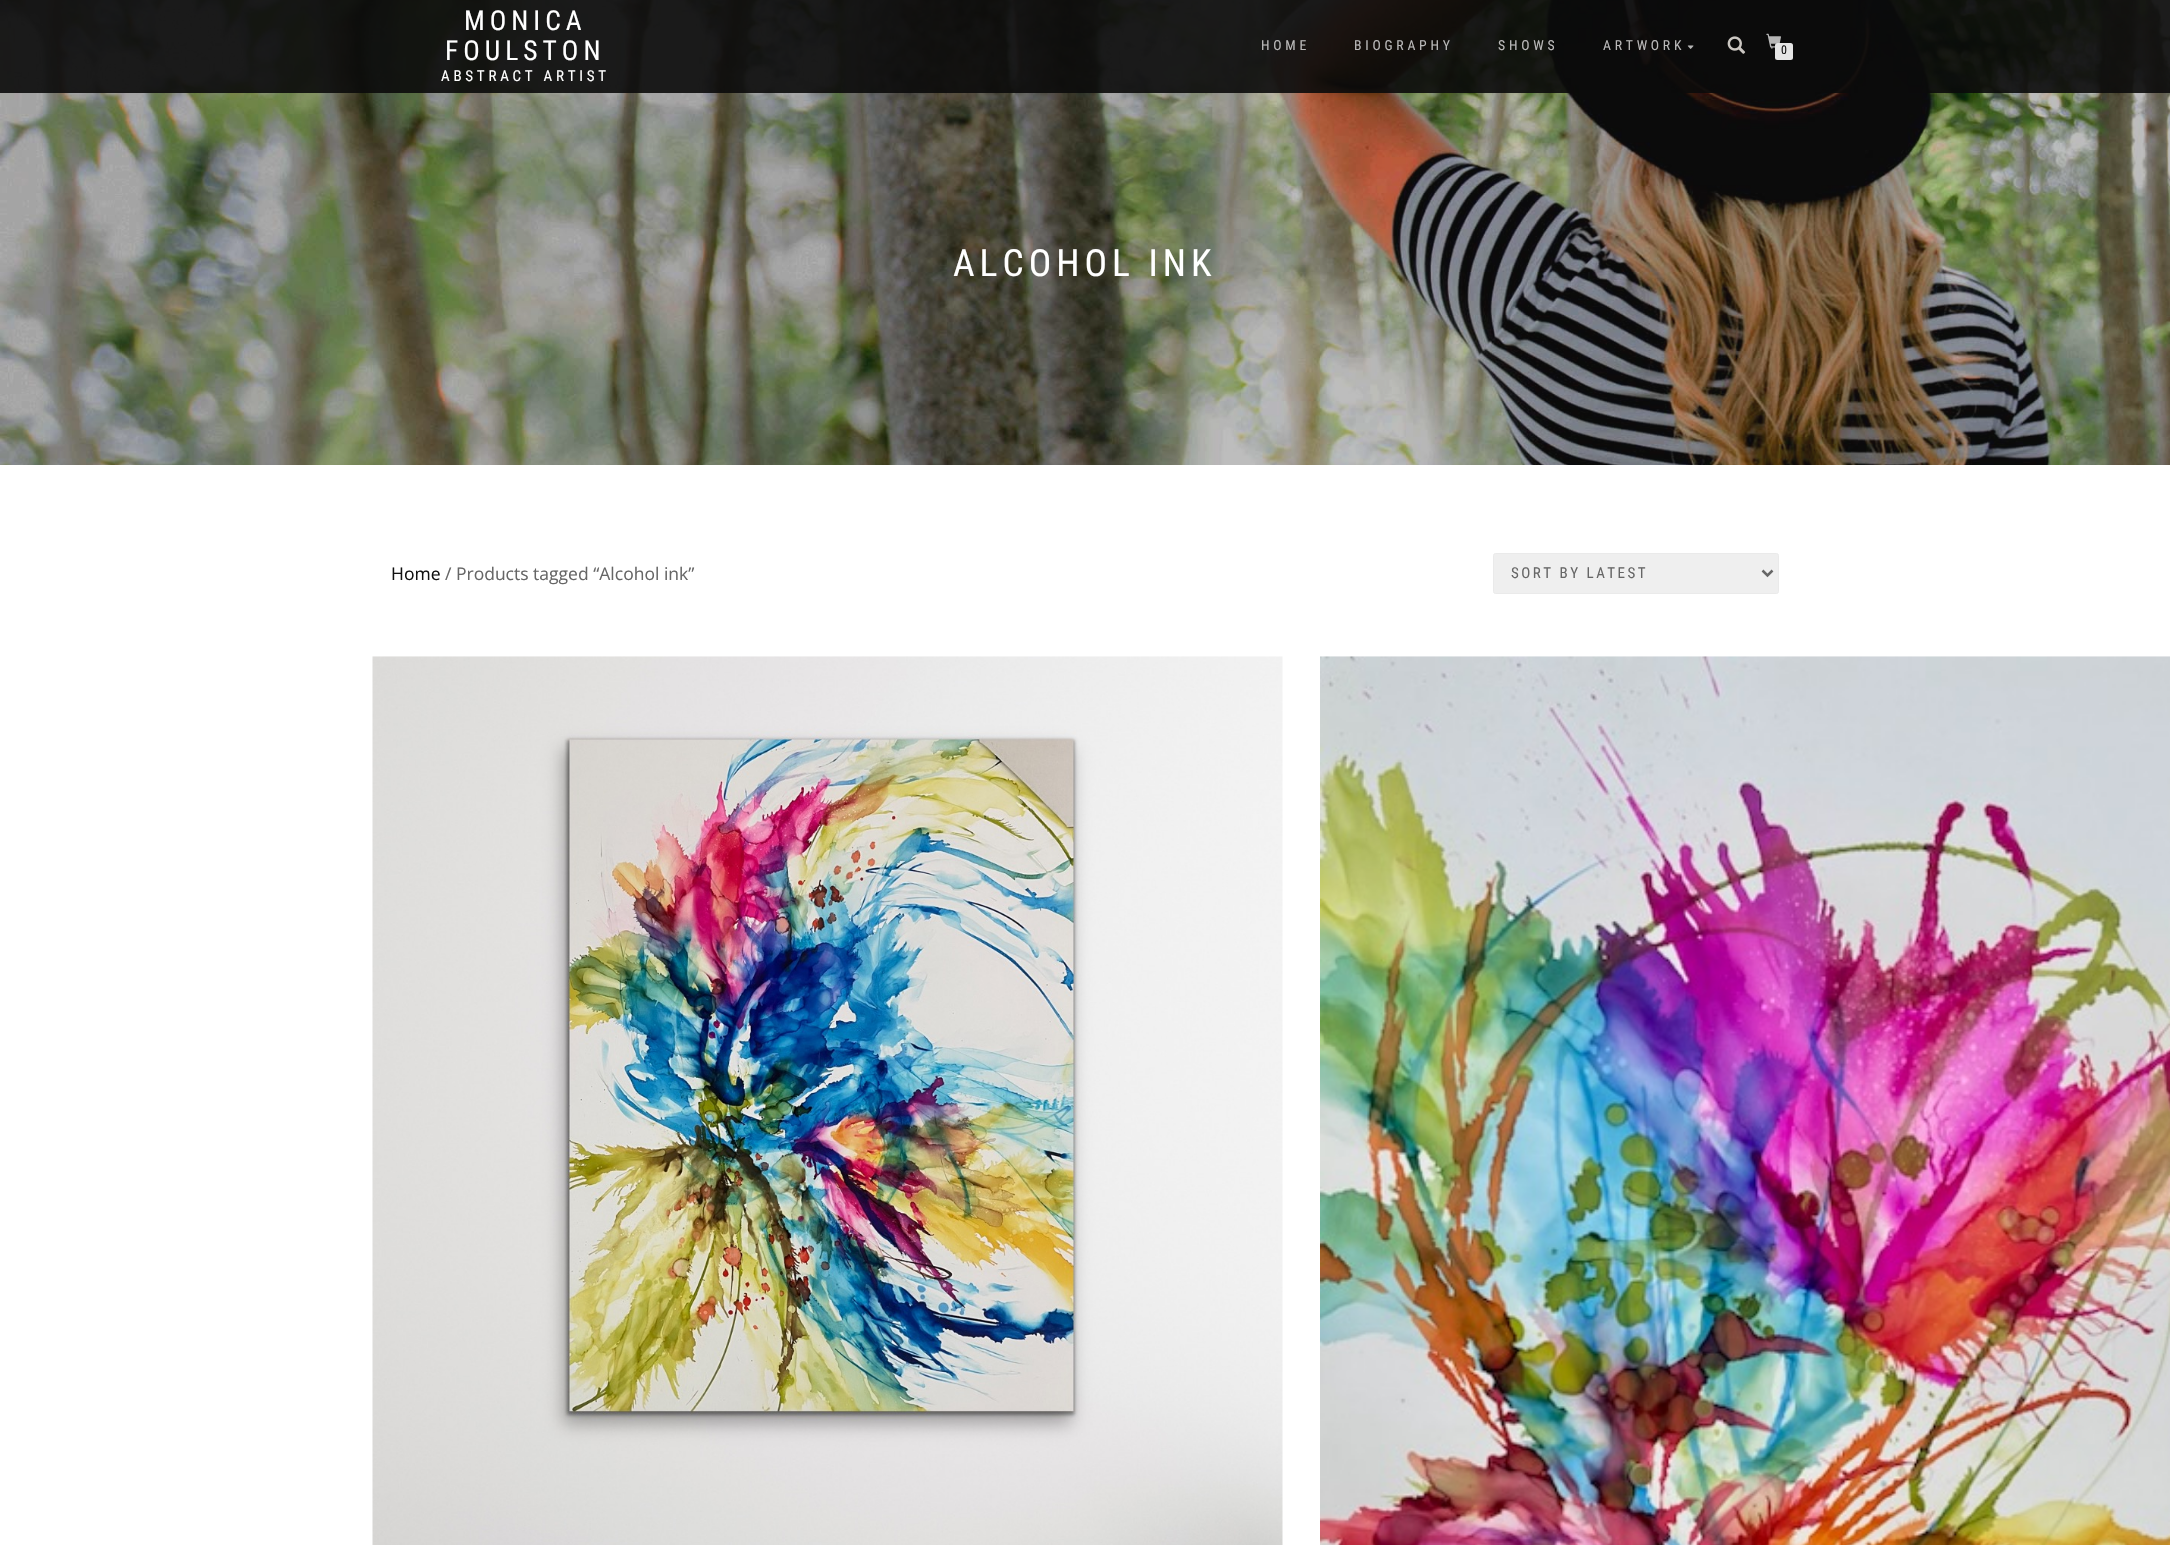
void draw(SkCanvas* canvas) {
	SkPaint fill;
	fill.setAntiAlias(true);
	auto makeFont = [&](const char* family, int weight, float size, bool italic = false) {
		SkFontStyle style(weight, SkFontStyle::kNormal_Width,
			italic ? SkFontStyle::kItalic_Slant : SkFontStyle::kUpright_Slant);
		SkFont result(fontMgr->matchFamilyStyle(family, style), size);
		result.setSubpixel(true);
		return result;
	};
	auto text = [&](const char* s, float x, float y, const SkFont& font) {
		canvas->drawString(s, x, y, font, fill);
	};
	auto spacedText = [&](const char* s, float x, float y, const SkFont& font, const SkPaint& ink, float letter, float word) {
		std::vector<SkGlyphID> glyphs(font.countText(s, strlen(s), SkTextEncoding::kUTF8));
		std::vector<float> xs(glyphs.size());
		font.textToGlyphs(s, strlen(s), SkTextEncoding::kUTF8, glyphs);
		font.getXPos(glyphs, xs, x);
		float extra = 0;
		for (size_t i = 0; i < glyphs.size(); i++) {
			xs[i] += extra;
			extra += letter + word * (glyphs[i] == font.unicharToGlyph(' '));
		}
		canvas->drawTextBlob(SkTextBlob::MakeFromPosHGlyphs(glyphs, xs, y, font), 0, 0, ink);
	};
	auto box = [&](float l, float t, float r, float b) {
		canvas->drawRect(SkRect::MakeLTRB(l, t, r, b), fill);
	};
	auto roundBox = [&](float l, float t, float r, float b, float radius) {
		canvas->drawRoundRect(SkRect::MakeLTRB(l, t, r, b), radius, radius, fill);
	};
	auto picture = [&](const char* path, float l, float t, float r, float b) {
		auto image = SkImages::DeferredFromEncodedData(SkData::MakeFromFileName(path));
		canvas->drawImageRect(image, SkRect::MakeLTRB(l, t, r, b), SkSamplingOptions());
	};
	canvas->clear(0xFFFFFFFF);
	picture("image3.png", 0, 0, 2170, 465);
	fill.setColor(0xE60A0A0A);
	box(0, 0, 2170, 93);
	picture("image0.png", 1687, 45, 1694, 49);
	picture("image1.png", 1727, 36, 1746, 54);
	picture("image2.png", 1766, 33, 1781, 49);
	fill.setColor(0xFFE5E5E5);
	roundBox(1775, 43, 1793, 60, 2.5f);
	fill.setColor(0xFFEFEFEF);
	canvas->drawRoundRect(SkRect::MakeLTRB(1493.5f, 553.5f, 1778.5f, 593.5f), 2, 2, fill);
	fill.setStyle(SkPaint::kStroke_Style);
	fill.setStrokeWidth(1);
	fill.setColor(0xFFEAEAEA);
	canvas->drawRoundRect(SkRect::MakeLTRB(1493.5f, 553.5f, 1778.5f, 593.5f), 2, 2, fill);
	fill.setStrokeWidth(2.5f);
	fill.setColor(0xFF666666);
	canvas->drawPath(SkPathBuilder().moveTo(1762.5f, 570.5f).lineTo(1767.5f, 575.5f).lineTo(1772.5f, 570.5f).detach(), fill);
	picture("image4.png", 372, 656, 1283, 1545);
	picture("image5.png", 1320, 656, 2170, 1545);
	auto font1 = makeFont("Roboto Condensed", 400, 27.5f);
	fill.setStyle(SkPaint::kFill_Style);
	fill.setColor(0xFFFFFFFF);
	spacedText("MONICA", 464, 30, font1, fill, 5, 0);
	spacedText("FOULSTON", 445, 60, font1, fill, 5, 0);
	auto font2 = makeFont("Roboto Condensed", 400, 15);
	spacedText("ABSTRACT ARTIST", 441, 81, font2, fill, 3.75f, 0);
	auto font3 = makeFont("Roboto Condensed", 400, 13.75f);
	fill.setColor(0xFFBAB9B9);
	spacedText("HOME", 1261, 50, font3, fill, 3.75f, 0);
	spacedText("BIOGRAPHY", 1354, 50, font3, fill, 3.75f, 0);
	spacedText("SHOWS", 1498, 50, font3, fill, 3.75f, 0);
	spacedText("ARTWORK", 1603, 50, font3, fill, 3.75f, 0);
	auto font4 = makeFont("Roboto Condensed", 400, 12);
	fill.setColor(0xFF111111);
	text("0", 1781, 54, font4);
	auto font5 = makeFont("Roboto Condensed", 400, 37.5f);
	fill.setColor(0xFFFFFFFF);
	spacedText("ALCOHOL INK", 953, 276, font5, fill, 5, 0);
	auto font6 = makeFont("Open Sans", 400, 17.5f);
	fill.setColor(0xFF111111);
	text("Home", 391, 580, font6);
	fill.setColor(0xFF666666);
	text("/ Products tagged “Alcohol ink”", 445, 580, font6);
	spacedText("SORT BY LATEST", 1511, 578, font2, fill, 2.5f, 0);
}
